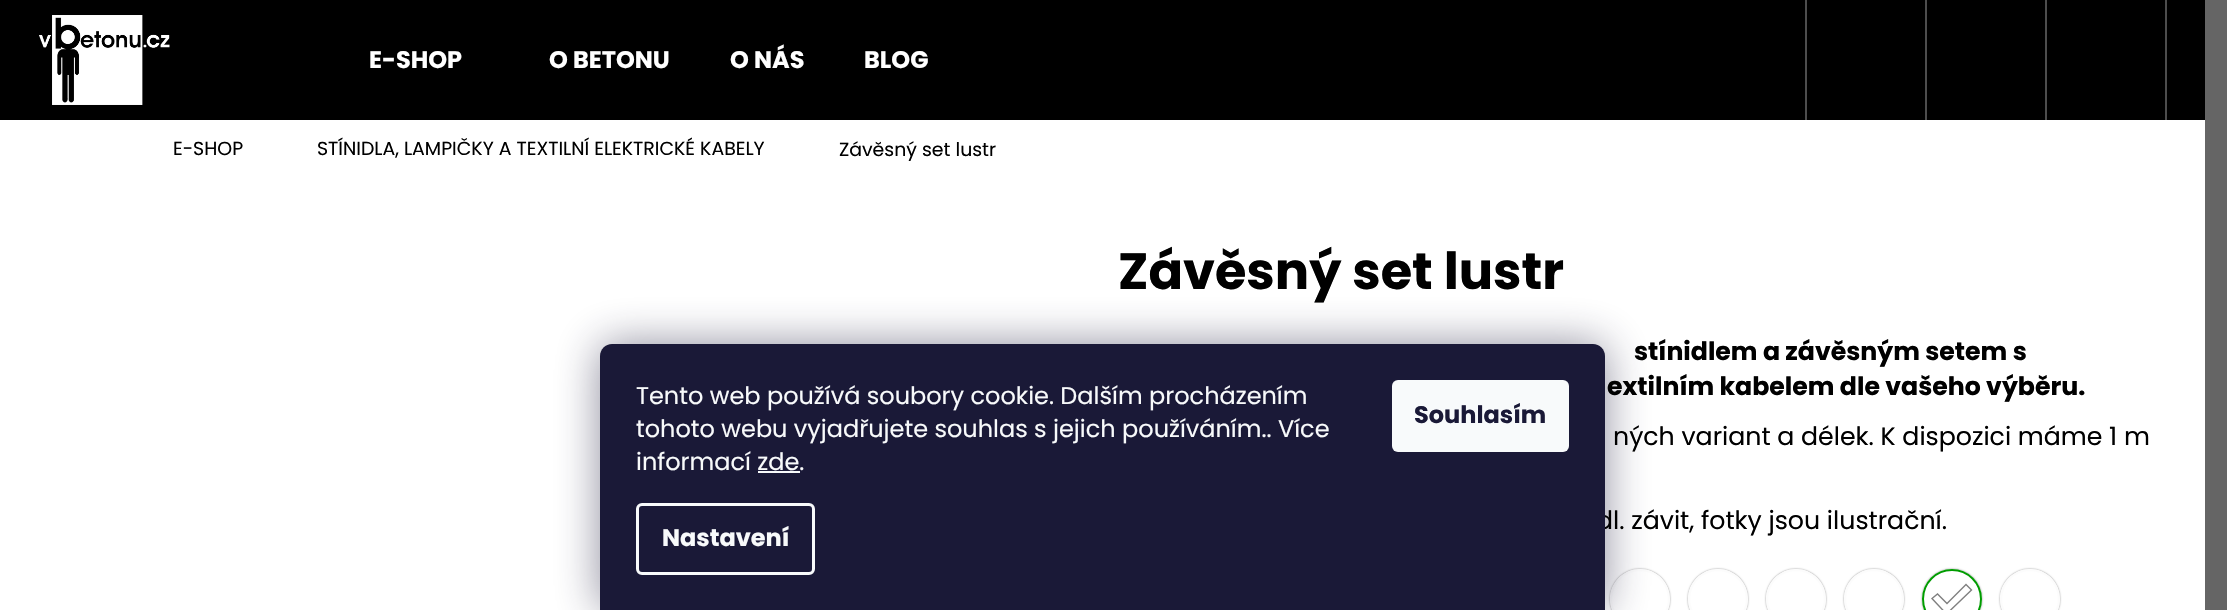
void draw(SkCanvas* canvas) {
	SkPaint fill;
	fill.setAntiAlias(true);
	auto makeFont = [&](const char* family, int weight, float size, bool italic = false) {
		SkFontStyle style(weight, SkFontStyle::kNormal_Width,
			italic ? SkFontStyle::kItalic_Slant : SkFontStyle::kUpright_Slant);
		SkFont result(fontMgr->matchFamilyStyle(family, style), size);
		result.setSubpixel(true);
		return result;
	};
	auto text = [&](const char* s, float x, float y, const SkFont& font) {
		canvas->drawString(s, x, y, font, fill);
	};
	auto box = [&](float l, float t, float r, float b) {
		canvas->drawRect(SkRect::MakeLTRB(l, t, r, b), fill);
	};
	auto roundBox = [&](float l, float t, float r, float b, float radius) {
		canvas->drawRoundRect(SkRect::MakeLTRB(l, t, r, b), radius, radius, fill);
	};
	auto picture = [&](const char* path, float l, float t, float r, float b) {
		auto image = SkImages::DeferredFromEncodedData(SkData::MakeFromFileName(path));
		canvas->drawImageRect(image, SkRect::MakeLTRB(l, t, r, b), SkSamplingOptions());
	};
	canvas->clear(0xFF656565);
	fill.setColor(0xFF000000);
	box(0, 0, 2205, 120);
	picture("image0.png", 39, 15, 170, 105);
	fill.setColor(0xFF4D4D4D);
	box(2165, 0, 2167, 120);
	box(1805, 0, 1807, 120);
	box(1925, 0, 1927, 120);
	box(2045, 0, 2047, 120);
	fill.setColor(0xFFFFFFFF);
	box(0, 120, 2205, 610);
	canvas->save();
	canvas->clipPath(SkPathBuilder(SkPathFillType::kEvenOdd).moveTo(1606, 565).lineTo(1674, 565).lineTo(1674, 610).lineTo(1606, 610).close().moveTo(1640, 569).cubicTo(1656.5f, 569, 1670, 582.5f, 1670, 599).cubicTo(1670, 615.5f, 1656.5f, 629, 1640, 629).cubicTo(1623.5f, 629, 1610, 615.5f, 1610, 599).cubicTo(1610, 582.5f, 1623.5f, 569, 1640, 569).close().detach(), true);
	fill.setColor(0x80000000);
	fill.setMaskFilter(SkMaskFilter::MakeBlur(kNormal_SkBlurStyle, 1));
	canvas->drawRoundRect(SkRect::MakeLTRB(1610, 569, 1670, 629), 30, 30, fill);
	fill.setMaskFilter(nullptr);
	canvas->restore();
	fill.setStyle(SkPaint::kStroke_Style);
	fill.setStrokeWidth(2);
	fill.setColor(0xFFFCFCFC);
	canvas->drawCircle(1640, 599, 29, fill);
	canvas->save();
	canvas->clipPath(SkPathBuilder(SkPathFillType::kEvenOdd).moveTo(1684, 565).lineTo(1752, 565).lineTo(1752, 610).lineTo(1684, 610).close().moveTo(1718, 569).cubicTo(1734.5f, 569, 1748, 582.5f, 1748, 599).cubicTo(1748, 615.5f, 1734.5f, 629, 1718, 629).cubicTo(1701.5f, 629, 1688, 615.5f, 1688, 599).cubicTo(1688, 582.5f, 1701.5f, 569, 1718, 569).close().detach(), true);
	fill.setStyle(SkPaint::kFill_Style);
	fill.setColor(0x80000000);
	fill.setMaskFilter(SkMaskFilter::MakeBlur(kNormal_SkBlurStyle, 1));
	canvas->drawRoundRect(SkRect::MakeLTRB(1688, 569, 1748, 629), 30, 30, fill);
	fill.setMaskFilter(nullptr);
	canvas->restore();
	fill.setStyle(SkPaint::kStroke_Style);
	fill.setColor(0xFFFCFCFC);
	canvas->drawCircle(1718, 599, 29, fill);
	canvas->save();
	canvas->clipPath(SkPathBuilder(SkPathFillType::kEvenOdd).moveTo(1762, 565).lineTo(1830, 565).lineTo(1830, 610).lineTo(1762, 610).close().moveTo(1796, 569).cubicTo(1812.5f, 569, 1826, 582.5f, 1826, 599).cubicTo(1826, 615.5f, 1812.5f, 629, 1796, 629).cubicTo(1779.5f, 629, 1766, 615.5f, 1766, 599).cubicTo(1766, 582.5f, 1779.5f, 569, 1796, 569).close().detach(), true);
	fill.setStyle(SkPaint::kFill_Style);
	fill.setColor(0x80000000);
	fill.setMaskFilter(SkMaskFilter::MakeBlur(kNormal_SkBlurStyle, 1));
	canvas->drawRoundRect(SkRect::MakeLTRB(1766, 569, 1826, 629), 30, 30, fill);
	fill.setMaskFilter(nullptr);
	canvas->restore();
	fill.setStyle(SkPaint::kStroke_Style);
	fill.setColor(0xFFFCFCFC);
	canvas->drawCircle(1796, 599, 29, fill);
	canvas->save();
	canvas->clipPath(SkPathBuilder(SkPathFillType::kEvenOdd).moveTo(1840, 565).lineTo(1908, 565).lineTo(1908, 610).lineTo(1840, 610).close().moveTo(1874, 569).cubicTo(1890.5f, 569, 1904, 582.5f, 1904, 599).cubicTo(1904, 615.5f, 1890.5f, 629, 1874, 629).cubicTo(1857.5f, 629, 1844, 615.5f, 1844, 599).cubicTo(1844, 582.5f, 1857.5f, 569, 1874, 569).close().detach(), true);
	fill.setStyle(SkPaint::kFill_Style);
	fill.setColor(0x80000000);
	fill.setMaskFilter(SkMaskFilter::MakeBlur(kNormal_SkBlurStyle, 1));
	canvas->drawRoundRect(SkRect::MakeLTRB(1844, 569, 1904, 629), 30, 30, fill);
	fill.setMaskFilter(nullptr);
	canvas->restore();
	fill.setStyle(SkPaint::kStroke_Style);
	fill.setColor(0xFFFCFCFC);
	canvas->drawCircle(1874, 599, 29, fill);
	canvas->save();
	canvas->clipPath(SkPathBuilder(SkPathFillType::kEvenOdd).moveTo(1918, 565).lineTo(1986, 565).lineTo(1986, 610).lineTo(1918, 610).close().moveTo(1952, 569).cubicTo(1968.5f, 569, 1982, 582.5f, 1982, 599).cubicTo(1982, 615.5f, 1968.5f, 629, 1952, 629).cubicTo(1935.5f, 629, 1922, 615.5f, 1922, 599).cubicTo(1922, 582.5f, 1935.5f, 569, 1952, 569).close().detach(), true);
	fill.setStyle(SkPaint::kFill_Style);
	fill.setColor(0x80000000);
	fill.setMaskFilter(SkMaskFilter::MakeBlur(kNormal_SkBlurStyle, 1));
	canvas->drawRoundRect(SkRect::MakeLTRB(1922, 569, 1982, 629), 30, 30, fill);
	fill.setMaskFilter(nullptr);
	canvas->restore();
	fill.setStyle(SkPaint::kStroke_Style);
	fill.setColor(0xFF009C00);
	canvas->drawCircle(1952, 599, 29, fill);
	fill.setStrokeWidth(1.4f);
	fill.setColor(0xFF808080);
	canvas->drawPath(SkPathBuilder().moveTo(1966, 584.5f).lineTo(1947, 603.5f).lineTo(1937.5f, 594).lineTo(1932, 598.5f).lineTo(1946.5f, 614).lineTo(1971.5f, 590).close().detach(), fill);
	canvas->save();
	canvas->clipPath(SkPathBuilder(SkPathFillType::kEvenOdd).moveTo(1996, 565).lineTo(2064, 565).lineTo(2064, 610).lineTo(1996, 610).close().moveTo(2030, 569).cubicTo(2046.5f, 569, 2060, 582.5f, 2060, 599).cubicTo(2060, 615.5f, 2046.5f, 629, 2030, 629).cubicTo(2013.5f, 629, 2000, 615.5f, 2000, 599).cubicTo(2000, 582.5f, 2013.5f, 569, 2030, 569).close().detach(), true);
	fill.setStyle(SkPaint::kFill_Style);
	fill.setColor(0x80000000);
	fill.setMaskFilter(SkMaskFilter::MakeBlur(kNormal_SkBlurStyle, 1));
	canvas->drawRoundRect(SkRect::MakeLTRB(2000, 569, 2060, 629), 30, 30, fill);
	fill.setMaskFilter(nullptr);
	canvas->restore();
	fill.setStyle(SkPaint::kStroke_Style);
	fill.setStrokeWidth(2);
	fill.setColor(0xFFFCFCFC);
	canvas->drawCircle(2030, 599, 29, fill);
	fill.setStyle(SkPaint::kFill_Style);
	fill.setColor(0x801B1939);
	fill.setMaskFilter(SkMaskFilter::MakeBlur(kNormal_SkBlurStyle, 22.5f));
	canvas->drawRoundRect(SkRect::MakeLTRB(600, 344, 1605, 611), 12, 12, fill);
	fill.setMaskFilter(nullptr);
	auto font1 = makeFont("Poppins", 700, 24);
	fill.setColor(0xFFFFFFFF);
	text("E-SHOP", 369, 68, font1);
	text("O BETONU", 549, 68, font1);
	text("O NÁS", 730, 68, font1);
	text("BLOG", 864, 68, font1);
	auto font2 = makeFont("Poppins", 400, 18.9f);
	fill.setColor(0xFF000000);
	text("E-SHOP", 173, 155, font2);
	text("STÍNIDLA, LAMPIČKY A TEXTILNÍ ELEKTRICKÉ KABELY", 317, 155, font2);
	text("Závěsný set lustr", 839, 156, font2);
	auto font3 = makeFont("Poppins", 700, 51);
	text("Závěsný set lustr", 1118, 289, font3);
	auto font4 = makeFont("Poppins", 700, 25.2f);
	text("stínidlem a závěsným setem s", 1634, 360, font4);
	text("extilním kabelem dle vašeho výběru.", 1607, 395, font4);
	auto font5 = makeFont("Poppins", 400, 25.2f);
	text("ných variant a délek. K dispozici máme 1 m", 1613, 445, font5);
	text("dl. závit, fotky jsou ilustrační.", 1596, 529, font5);
	fill.setColor(0xFF1A1937);
	canvas->drawPath(SkPathBuilder().moveTo(612, 344).lineTo(1593, 344).cubicTo(1599.5f, 344, 1605, 349.5f, 1605, 356).lineTo(1605, 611).lineTo(600, 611).lineTo(600, 356).cubicTo(600, 349.5f, 605.5f, 344, 612, 344).close().detach(), fill);
	auto font6 = makeFont("Poppins", 400, 24);
	fill.setColor(0xFFF8FAFB);
	text("Tento web používá soubory cookie. Dalším procházením", 636, 404, font6);
	text("tohoto webu vyjadřujete souhlas s jejich používáním.. Více", 636, 437, font6);
	text("informací zde.", 636, 470, font6);
	box(758, 471, 800, 473);
	fill.setStyle(SkPaint::kStroke_Style);
	fill.setStrokeWidth(3);
	canvas->drawRoundRect(SkRect::MakeLTRB(637.5f, 504.5f, 813.5f, 573.5f), 4.5f, 4.5f, fill);
	fill.setStyle(SkPaint::kFill_Style);
	text("Nastavení", 662, 546, font1);
	roundBox(1392, 380, 1569, 452, 6);
	fill.setColor(0xFF1A1937);
	text("Souhlasím", 1414, 423, font1);
}
